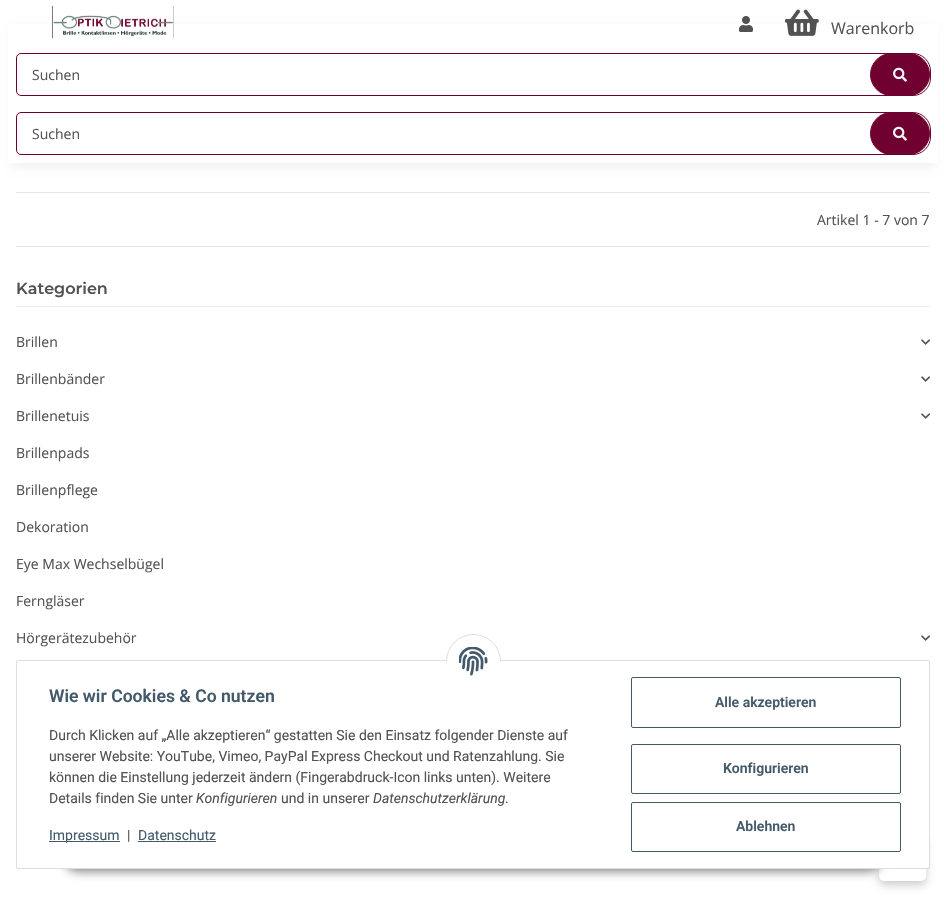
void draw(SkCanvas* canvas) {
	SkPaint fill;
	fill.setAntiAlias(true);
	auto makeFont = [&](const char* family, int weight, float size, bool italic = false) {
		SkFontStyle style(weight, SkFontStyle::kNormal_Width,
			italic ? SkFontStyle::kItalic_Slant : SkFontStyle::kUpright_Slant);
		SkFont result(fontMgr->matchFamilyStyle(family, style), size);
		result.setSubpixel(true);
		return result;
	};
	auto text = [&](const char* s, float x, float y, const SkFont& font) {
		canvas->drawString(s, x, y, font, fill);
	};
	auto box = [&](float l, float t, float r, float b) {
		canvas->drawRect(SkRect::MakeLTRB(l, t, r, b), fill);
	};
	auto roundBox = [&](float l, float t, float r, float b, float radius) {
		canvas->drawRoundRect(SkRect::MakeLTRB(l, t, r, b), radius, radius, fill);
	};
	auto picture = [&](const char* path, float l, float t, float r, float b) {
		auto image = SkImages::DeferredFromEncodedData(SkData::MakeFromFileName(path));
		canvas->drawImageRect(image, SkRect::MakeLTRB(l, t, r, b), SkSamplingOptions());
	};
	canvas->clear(0xFFFFFFFF);
	fill.setColor(0x0F000000);
	fill.setMaskFilter(SkMaskFilter::MakeBlur(kNormal_SkBlurStyle, 4.5f));
	canvas->drawRect(SkRect::MakeLTRB(12, 28, 934, 167), fill);
	fill.setMaskFilter(nullptr);
	fill.setColor(0xFFFFFFFF);
	box(8, 24, 938, 163);
	picture("image0.png", 52, 6, 174, 39);
	picture("image1.png", 739, 16, 753, 32);
	picture("image2.png", 785, 9, 819, 36);
	fill.setStyle(SkPaint::kStroke_Style);
	fill.setStrokeWidth(1);
	fill.setColor(0xFF6F002F);
	canvas->drawPath(SkPathBuilder().moveTo(21, 53.5f).lineTo(913, 53.5f).cubicTo(922.5f, 53.5f, 930.5f, 61.5f, 930.5f, 71).lineTo(930.5f, 78).cubicTo(930.5f, 87.5f, 922.5f, 95.5f, 913, 95.5f).lineTo(21, 95.5f).cubicTo(18.5f, 95.5f, 16.5f, 93.5f, 16.5f, 91).lineTo(16.5f, 58).cubicTo(16.5f, 55.5f, 18.5f, 53.5f, 21, 53.5f).close().detach(), fill);
	fill.setStyle(SkPaint::kFill_Style);
	canvas->drawRoundRect(SkRect::MakeLTRB(870.5f, 53.5f, 929.5f, 95.5f), 21, 21, fill);
	fill.setStyle(SkPaint::kStroke_Style);
	canvas->drawRoundRect(SkRect::MakeLTRB(870.5f, 53.5f, 929.5f, 95.5f), 21, 21, fill);
	picture("image3.png", 893, 67, 907, 82);
	canvas->drawPath(SkPathBuilder().moveTo(21, 112.5f).lineTo(913, 112.5f).cubicTo(922.5f, 112.5f, 930.5f, 120.5f, 930.5f, 130).lineTo(930.5f, 137).cubicTo(930.5f, 146.5f, 922.5f, 154.5f, 913, 154.5f).lineTo(21, 154.5f).cubicTo(18.5f, 154.5f, 16.5f, 152.5f, 16.5f, 150).lineTo(16.5f, 117).cubicTo(16.5f, 114.5f, 18.5f, 112.5f, 21, 112.5f).close().detach(), fill);
	fill.setStyle(SkPaint::kFill_Style);
	canvas->drawRoundRect(SkRect::MakeLTRB(870.5f, 112.5f, 929.5f, 154.5f), 21, 21, fill);
	fill.setStyle(SkPaint::kStroke_Style);
	canvas->drawRoundRect(SkRect::MakeLTRB(870.5f, 112.5f, 929.5f, 154.5f), 21, 21, fill);
	picture("image3.png", 893, 126, 907, 141);
	fill.setStyle(SkPaint::kFill_Style);
	fill.setColor(0xFFE6E6E6);
	box(16, 192, 930, 193);
	box(16, 246, 930, 247);
	fill.setColor(0xFFEBEBEB);
	box(16, 306, 930, 307);
	picture("image4.png", 921, 339, 930, 345);
	picture("image4.png", 921, 376, 930, 382);
	picture("image4.png", 921, 413, 930, 419);
	picture("image4.png", 921, 635, 930, 641);
	fill.setColor(0x33000000);
	fill.setMaskFilter(SkMaskFilter::MakeBlur(kNormal_SkBlurStyle, 4));
	canvas->drawRoundRect(SkRect::MakeLTRB(879, 841, 926, 885), 5, 5, fill);
	fill.setMaskFilter(nullptr);
	fill.setColor(0xFFFFFFFF);
	roundBox(879, 837, 926, 881, 5);
	fill.setColor(0x73000000);
	fill.setMaskFilter(SkMaskFilter::MakeBlur(kNormal_SkBlurStyle, 5));
	canvas->drawRoundRect(SkRect::MakeLTRB(63, 840, 883, 872), 16, 16, fill);
	fill.setMaskFilter(nullptr);
	fill.setColor(0xFFFFFFFF);
	canvas->drawRoundRect(SkRect::MakeLTRB(16.5f, 660.5f, 929.5f, 868.5f), 1.5f, 1.5f, fill);
	fill.setStyle(SkPaint::kStroke_Style);
	fill.setColor(0xFFDDDDDD);
	canvas->drawRoundRect(SkRect::MakeLTRB(16.5f, 660.5f, 929.5f, 868.5f), 1.5f, 1.5f, fill);
	fill.setStyle(SkPaint::kFill_Style);
	fill.setColor(0xFFFFFFFF);
	canvas->drawCircle(473.5f, 661.5f, 27, fill);
	fill.setStyle(SkPaint::kStroke_Style);
	fill.setColor(0xFFDDDDDD);
	canvas->drawCircle(473.5f, 661.5f, 27, fill);
	fill.setStyle(SkPaint::kFill_Style);
	fill.setColor(0xFFFFFFFF);
	box(446, 662, 501, 689);
	picture("image5.png", 459, 647, 488, 676);
	fill.setColor(0xFF435A6B);
	box(49, 841, 120, 842);
	box(138, 841, 216, 842);
	fill.setStyle(SkPaint::kStroke_Style);
	canvas->drawRoundRect(SkRect::MakeLTRB(631.5f, 677.5f, 900.5f, 727.5f), 1.5f, 1.5f, fill);
	canvas->drawRoundRect(SkRect::MakeLTRB(631.5f, 744.5f, 900.5f, 793.5f), 1.5f, 1.5f, fill);
	canvas->drawRoundRect(SkRect::MakeLTRB(631.5f, 802.5f, 900.5f, 851.5f), 1.5f, 1.5f, fill);
	auto font1 = makeFont("Open Sans", 400, 16);
	fill.setStyle(SkPaint::kFill_Style);
	fill.setColor(0xFF525252);
	text("Warenkorb", 831, 34, font1);
	auto font2 = makeFont("Open Sans", 400, 14);
	text("Suchen", 32, 80, font2);
	text("Suchen", 32, 139, font2);
	text("Artikel 1 - 7 von 7", 817, 225, font2);
	auto font3 = makeFont("Montserrat", 600, 16);
	text("Kategorien", 16, 294, font3);
	text("Brillen", 16, 347, font2);
	text("Brillenbänder", 16, 384, font2);
	text("Brillenetuis", 16, 421, font2);
	text("Brillenpads", 16, 458, font2);
	text("Brillenpflege", 16, 495, font2);
	text("Dekoration", 16, 532, font2);
	text("Eye Max Wechselbügel", 16, 569, font2);
	text("Ferngläser", 16, 606, font2);
	text("Hörgerätezubehör", 16, 643, font2);
	auto font4 = makeFont("Roboto", 600, 17.6f);
	fill.setColor(0xFF435A6B);
	text("Wie wir Cookies & Co nutzen", 49, 702, font4);
	auto font5 = makeFont("Roboto", 400, 14);
	fill.setColor(0xFF525252);
	text("Durch Klicken auf „Alle akzeptieren“ gestatten Sie den Einsatz folgender Dienste auf", 49, 740, font5);
	text("unserer Website: YouTube, Vimeo, PayPal Express Checkout und Ratenzahlung. Sie", 49, 761, font5);
	text("können die Einstellung jederzeit ändern (Fingerabdruck-Icon links unten). Weitere", 49, 782, font5);
	text("Details finden Sie unter", 49, 803, font5);
	auto font6 = makeFont("Roboto", 400, 14, true);
	text("Konfigurieren", 196, 803, font6);
	text("und in unserer", 281, 803, font5);
	text("Datenschutzerklärung", 373, 803, font6);
	text(".", 505, 803, font5);
	fill.setColor(0xFF435A6B);
	text("Impressum", 49, 840, font5);
	fill.setColor(0xFF525252);
	text("|", 127, 840, font5);
	fill.setColor(0xFF435A6B);
	text("Datenschutz", 138, 840, font5);
	auto font7 = makeFont("Roboto", 600, 14);
	text("Alle akzeptieren", 715, 707, font7);
	text("Konfigurieren", 723, 773, font7);
	text("Ablehnen", 736, 831, font7);
}
